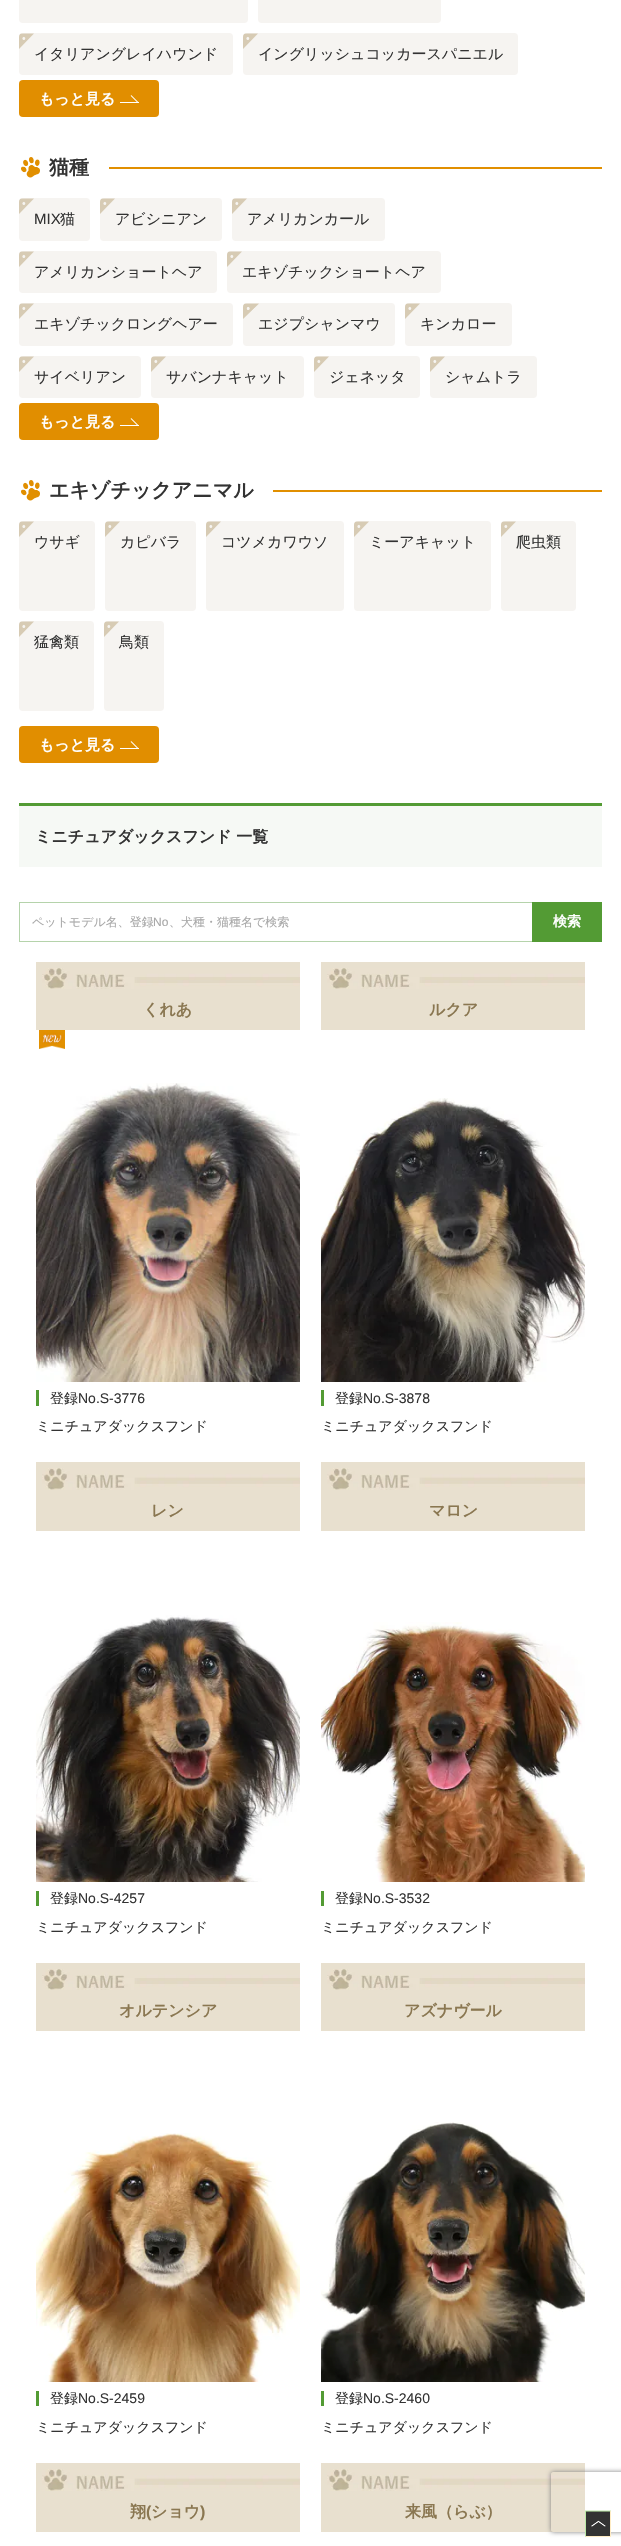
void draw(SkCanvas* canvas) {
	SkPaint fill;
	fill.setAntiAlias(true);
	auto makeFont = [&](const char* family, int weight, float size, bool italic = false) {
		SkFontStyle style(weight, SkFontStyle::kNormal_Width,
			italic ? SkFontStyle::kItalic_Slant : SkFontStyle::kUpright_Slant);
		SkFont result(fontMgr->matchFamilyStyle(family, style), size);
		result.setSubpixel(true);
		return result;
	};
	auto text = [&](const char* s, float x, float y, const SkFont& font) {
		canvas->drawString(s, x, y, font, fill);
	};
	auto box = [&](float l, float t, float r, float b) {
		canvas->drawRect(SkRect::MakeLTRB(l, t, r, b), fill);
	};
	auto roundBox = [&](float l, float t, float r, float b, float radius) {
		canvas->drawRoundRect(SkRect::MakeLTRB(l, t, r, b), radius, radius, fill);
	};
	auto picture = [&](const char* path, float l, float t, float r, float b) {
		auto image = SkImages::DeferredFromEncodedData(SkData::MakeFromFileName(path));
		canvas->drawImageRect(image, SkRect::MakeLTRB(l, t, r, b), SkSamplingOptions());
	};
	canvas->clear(0xFFFFFFFF);
	fill.setColor(0xFFF6F4F1);
	roundBox(19, -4, 248, 23, 4);
	roundBox(258, -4, 441, 23, 4);
	roundBox(19, 33, 233, 75, 4);
	picture("image0.png", 19, 33, 34, 49);
	roundBox(243, 33, 518, 75, 4);
	picture("image0.png", 243, 33, 258, 49);
	fill.setColor(0xFFE18E00);
	roundBox(19, 80, 159, 117, 4);
	picture("image1.png", 120, 95, 139, 103);
	picture("image2.png", 21, 157, 40, 178);
	fill.setColor(0xFFE18F00);
	box(109, 167, 602, 169);
	fill.setColor(0xFFF6F4F1);
	roundBox(19, 198, 90, 241, 4);
	picture("image0.png", 19, 198, 34, 214);
	roundBox(100, 198, 222, 241, 4);
	picture("image0.png", 100, 198, 115, 214);
	roundBox(232, 198, 385, 241, 4);
	picture("image0.png", 232, 198, 247, 214);
	roundBox(19, 251, 217, 293, 4);
	picture("image0.png", 19, 251, 34, 267);
	roundBox(227, 251, 441, 293, 4);
	picture("image0.png", 227, 251, 242, 267);
	roundBox(19, 303, 233, 346, 4);
	picture("image0.png", 19, 303, 34, 319);
	roundBox(243, 303, 395, 346, 4);
	picture("image3.png", 243, 303, 259, 319);
	roundBox(405, 303, 512, 346, 4);
	picture("image0.png", 405, 303, 420, 319);
	roundBox(19, 356, 141, 398, 4);
	picture("image0.png", 19, 356, 34, 372);
	roundBox(151, 356, 304, 398, 4);
	picture("image0.png", 151, 356, 166, 372);
	roundBox(314, 356, 420, 398, 4);
	picture("image0.png", 314, 356, 329, 372);
	roundBox(430, 356, 537, 398, 4);
	picture("image0.png", 430, 356, 445, 372);
	fill.setColor(0xFFE18E00);
	roundBox(19, 403, 159, 440, 4);
	picture("image1.png", 120, 418, 139, 426);
	picture("image2.png", 21, 480, 40, 501);
	fill.setColor(0xFFE18F00);
	box(273, 490, 602, 492);
	fill.setColor(0xFFF6F4F1);
	roundBox(19, 521, 95, 611, 4);
	picture("image0.png", 19, 521, 34, 537);
	roundBox(105, 521, 196, 611, 4);
	picture("image0.png", 105, 521, 120, 537);
	roundBox(206, 521, 344, 611, 4);
	picture("image0.png", 206, 521, 221, 537);
	roundBox(354, 521, 491, 611, 4);
	picture("image0.png", 354, 521, 369, 537);
	roundBox(501, 521, 576, 611, 4);
	picture("image0.png", 501, 521, 516, 537);
	roundBox(19, 621, 94, 711, 4);
	picture("image0.png", 19, 621, 34, 637);
	roundBox(104, 621, 164, 711, 4);
	picture("image0.png", 104, 621, 119, 637);
	fill.setColor(0xFFE18E00);
	roundBox(19, 726, 159, 763, 4);
	picture("image1.png", 120, 741, 139, 749);
	fill.setColor(0xFFF6F9F5);
	box(19, 806, 602, 867);
	fill.setColor(0xFF539B34);
	box(19, 803, 602, 806);
	fill.setColor(0xFFB5D3AB);
	box(19, 902, 532, 903);
	box(19, 941, 532, 942);
	box(19, 902, 20, 942);
	fill.setColor(0xFF539B34);
	box(532, 902, 602, 942);
	fill.setColor(0xFFE8E0CF);
	box(36, 962, 300, 1030);
	picture("image4.png", 42, 968, 300, 989);
	picture("image5.png", 39, 1030, 65, 1049);
	picture("image6.png", 36, 1083, 300, 1382);
	fill.setColor(0xFF539B34);
	box(36, 1390, 39, 1406);
	fill.setColor(0xFFE8E0CF);
	box(321, 962, 585, 1030);
	picture("image7.png", 327, 968, 585, 989);
	picture("image8.png", 321, 1098, 585, 1382);
	fill.setColor(0xFF539B34);
	box(321, 1390, 324, 1406);
	fill.setColor(0xFFE8E0CF);
	box(36, 1462, 300, 1531);
	picture("image9.png", 42, 1468, 300, 1490);
	picture("image10.png", 36, 1615, 300, 1882);
	fill.setColor(0xFF539B34);
	box(36, 1891, 39, 1906);
	fill.setColor(0xFFE8E0CF);
	box(321, 1462, 585, 1531);
	picture("image11.png", 327, 1468, 585, 1490);
	picture("image12.png", 321, 1622, 585, 1882);
	fill.setColor(0xFF539B34);
	box(321, 1891, 324, 1906);
	fill.setColor(0xFFE8E0CF);
	box(36, 1963, 300, 2031);
	picture("image4.png", 42, 1969, 300, 1990);
	picture("image13.png", 36, 2133, 300, 2382);
	fill.setColor(0xFF539B34);
	box(36, 2391, 39, 2406);
	fill.setColor(0xFFE8E0CF);
	box(321, 1963, 585, 2031);
	picture("image7.png", 327, 1969, 585, 1990);
	picture("image14.png", 321, 2122, 585, 2382);
	fill.setColor(0xFF539B34);
	box(321, 2391, 324, 2406);
	fill.setColor(0xFFE8E0CF);
	box(36, 2463, 300, 2532);
	picture("image15.png", 42, 2469, 300, 2491);
	box(321, 2463, 585, 2532);
	picture("image16.png", 327, 2469, 585, 2491);
	canvas->save();
	canvas->clipPath(SkPathBuilder(SkPathFillType::kEvenOdd).moveTo(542, 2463).lineTo(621, 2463).lineTo(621, 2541).lineTo(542, 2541).close().moveTo(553, 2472).lineTo(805, 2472).cubicTo(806, 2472, 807, 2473, 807, 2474).lineTo(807, 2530).cubicTo(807, 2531, 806, 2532, 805, 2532).lineTo(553, 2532).cubicTo(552, 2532, 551, 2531, 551, 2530).lineTo(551, 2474).cubicTo(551, 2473, 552, 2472, 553, 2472).close().detach(), true);
	fill.setColor(0xFF808080);
	fill.setMaskFilter(SkMaskFilter::MakeBlur(kNormal_SkBlurStyle, 2.5f));
	canvas->drawRoundRect(SkRect::MakeLTRB(551, 2472, 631, 2532), 2, 2, fill);
	fill.setMaskFilter(nullptr);
	canvas->restore();
	picture("image17.png", 585, 2510, 611, 2537);
	auto font1 = makeFont("WenQuanYi Zen Hei", 500, 15);
	fill.setColor(0xFF333333);
	text("イタリアングレイハウンド", 34, 59, font1);
	text("イングリッシュコッカースパニエル", 258, 59, font1);
	auto font2 = makeFont("WenQuanYi Zen Hei", 700, 15);
	fill.setColor(0xFFFFFFFF);
	text("もっと見る", 39, 104, font2);
	auto font3 = makeFont("WenQuanYi Zen Hei", 700, 20);
	fill.setColor(0xFF333333);
	text("猫種", 49, 174, font3);
	auto font4 = makeFont("Liberation Sans", 400, 15);
	text("MIX", 34, 224, font4);
	text("猫", 60, 224, font1);
	text("アビシニアン", 115, 224, font1);
	text("アメリカンカール", 247, 224, font1);
	text("アメリカンショートヘア", 34, 277, font1);
	text("エキゾチックショートヘア", 242, 277, font1);
	text("エキゾチックロングヘアー", 34, 329, font1);
	text("エジプシャンマウ", 258, 329, font1);
	text("キンカロー", 420, 329, font1);
	text("サイベリアン", 34, 382, font1);
	text("サバンナキャット", 166, 382, font1);
	text("ジェネッタ", 329, 382, font1);
	text("シャムトラ", 445, 382, font1);
	fill.setColor(0xFFFFFFFF);
	text("もっと見る", 39, 427, font2);
	fill.setColor(0xFF333333);
	text("エキゾチックアニマル", 49, 497, font3);
	text("ウサギ", 34, 547, font1);
	text("カピバラ", 120, 547, font1);
	text("コツメカワウソ", 221, 547, font1);
	text("ミーアキャット", 369, 547, font1);
	text("爬虫類", 516, 547, font1);
	text("猛禽類", 34, 647, font1);
	text("鳥類", 119, 647, font1);
	fill.setColor(0xFFFFFFFF);
	text("もっと見る", 39, 750, font2);
	auto font5 = makeFont("WenQuanYi Zen Hei", 700, 16);
	fill.setColor(0xFF333333);
	text("ミニチュアダックスフンド 一覧", 35, 842, font5);
	auto font6 = makeFont("WenQuanYi Zen Hei", 500, 12);
	fill.setColor(0xFFA8A8A8);
	text("ペットモデル名、登録", 32, 926, font6);
	auto font7 = makeFont("Liberation Sans", 400, 12);
	text("No", 153, 926, font7);
	text("、犬種・猫種名で検索", 169, 926, font6);
	auto font8 = makeFont("WenQuanYi Zen Hei", 700, 14);
	fill.setColor(0xFFFFFFFF);
	text("検索", 553, 926, font8);
	fill.setColor(0xFF8A7751);
	text("くれあ", 143, 1015, font5);
	auto font9 = makeFont("WenQuanYi Zen Hei", 500, 14);
	fill.setColor(0xFF333333);
	text("登録", 50, 1403, font9);
	auto font10 = makeFont("Liberation Sans", 400, 14);
	text("No.S-3776", 78, 1403, font10);
	text("ミニチュアダックスフンド", 36, 1431, font9);
	fill.setColor(0xFF8A7751);
	text("ルクア", 429, 1015, font5);
	fill.setColor(0xFF333333);
	text("登録", 335, 1403, font9);
	text("No.S-3878", 363, 1403, font10);
	text("ミニチュアダックスフンド", 321, 1431, font9);
	fill.setColor(0xFF8A7751);
	text("レン", 151, 1516, font5);
	fill.setColor(0xFF333333);
	text("登録", 50, 1903, font9);
	text("No.S-4257", 78, 1903, font10);
	text("ミニチュアダックスフンド", 36, 1932, font9);
	fill.setColor(0xFF8A7751);
	text("マロン", 429, 1516, font5);
	fill.setColor(0xFF333333);
	text("登録", 335, 1903, font9);
	text("No.S-3532", 363, 1903, font10);
	text("ミニチュアダックスフンド", 321, 1932, font9);
	fill.setColor(0xFF8A7751);
	text("オルテンシア", 119, 2016, font5);
	fill.setColor(0xFF333333);
	text("登録", 50, 2403, font9);
	text("No.S-2459", 78, 2403, font10);
	text("ミニチュアダックスフンド", 36, 2432, font9);
	fill.setColor(0xFF8A7751);
	text("アズナヴール", 404, 2016, font5);
	fill.setColor(0xFF333333);
	text("登録", 335, 2403, font9);
	text("No.S-2460", 363, 2403, font10);
	text("ミニチュアダックスフンド", 321, 2432, font9);
	fill.setColor(0xFF8A7751);
	text("翔", 130, 2517, font5);
	auto font11 = makeFont("Liberation Sans", 700, 16);
	text("(", 146, 2517, font11);
	text("ショウ", 151, 2517, font5);
	text(")", 200, 2517, font11);
	text("来風（らぶ）", 405, 2517, font5);
}
